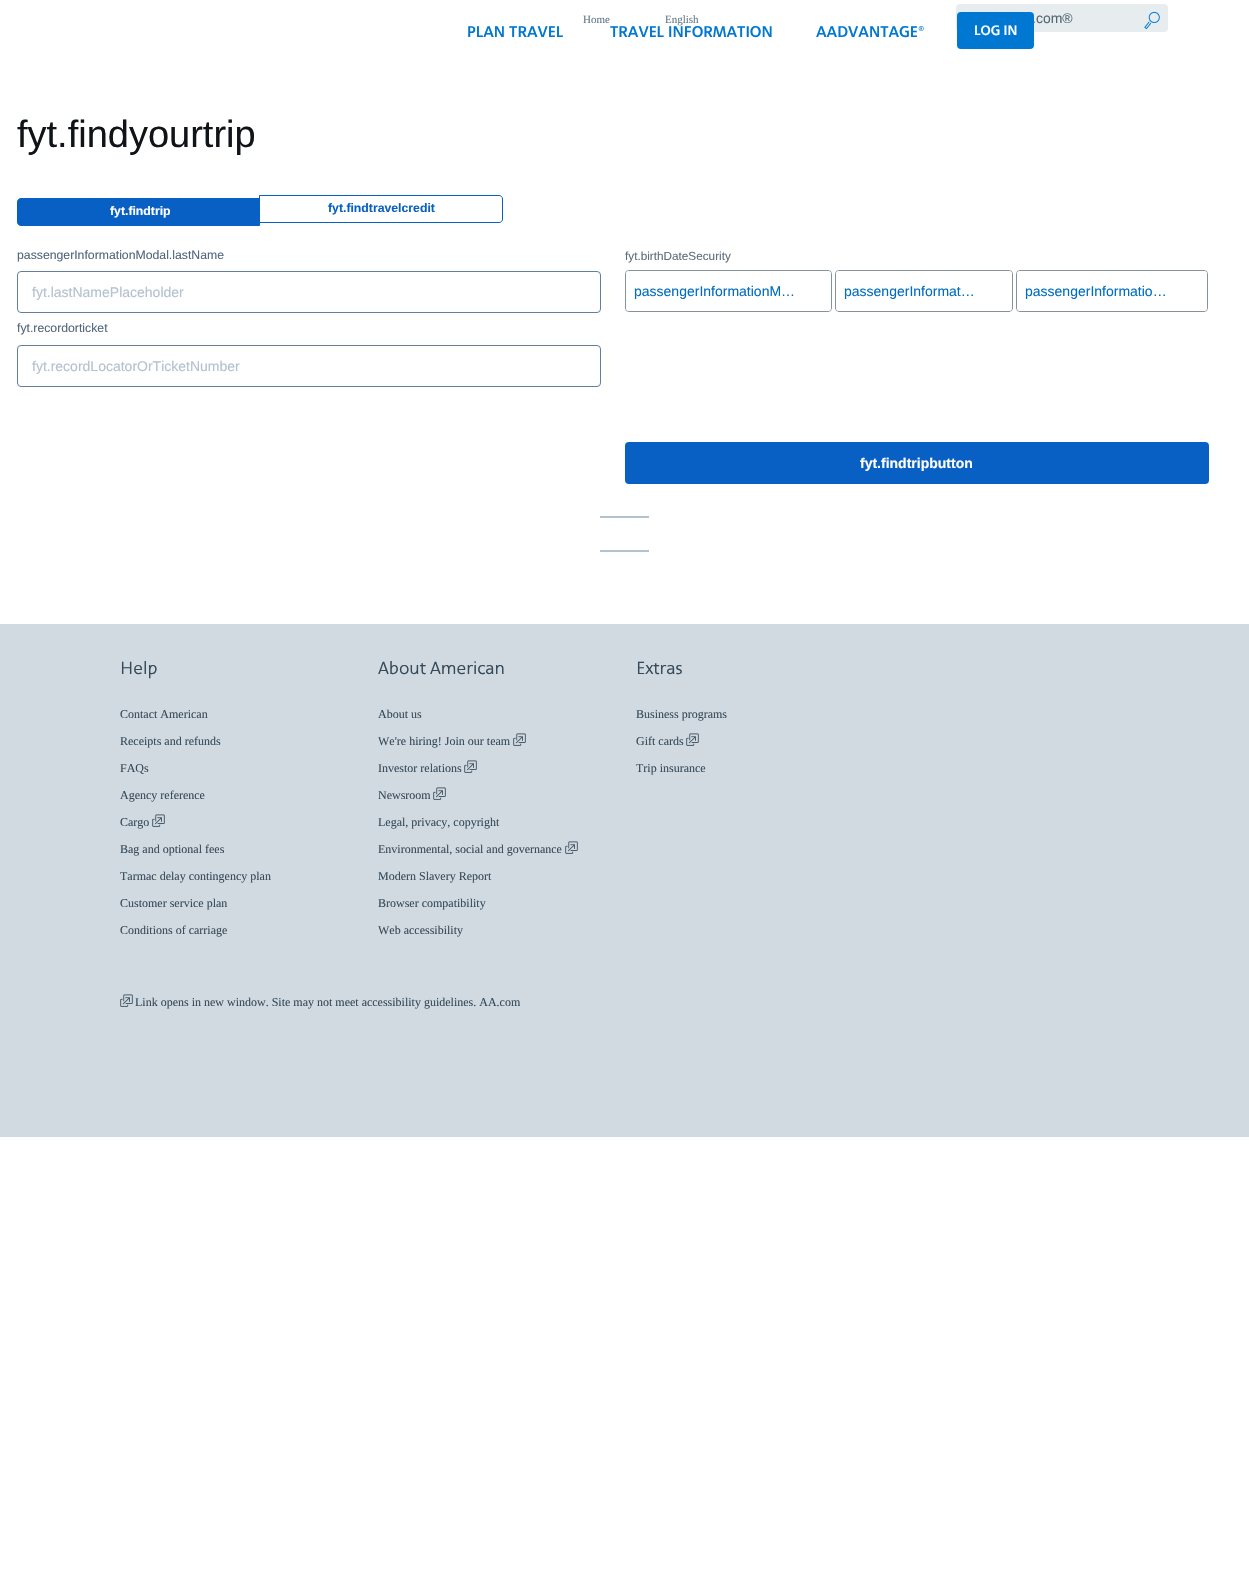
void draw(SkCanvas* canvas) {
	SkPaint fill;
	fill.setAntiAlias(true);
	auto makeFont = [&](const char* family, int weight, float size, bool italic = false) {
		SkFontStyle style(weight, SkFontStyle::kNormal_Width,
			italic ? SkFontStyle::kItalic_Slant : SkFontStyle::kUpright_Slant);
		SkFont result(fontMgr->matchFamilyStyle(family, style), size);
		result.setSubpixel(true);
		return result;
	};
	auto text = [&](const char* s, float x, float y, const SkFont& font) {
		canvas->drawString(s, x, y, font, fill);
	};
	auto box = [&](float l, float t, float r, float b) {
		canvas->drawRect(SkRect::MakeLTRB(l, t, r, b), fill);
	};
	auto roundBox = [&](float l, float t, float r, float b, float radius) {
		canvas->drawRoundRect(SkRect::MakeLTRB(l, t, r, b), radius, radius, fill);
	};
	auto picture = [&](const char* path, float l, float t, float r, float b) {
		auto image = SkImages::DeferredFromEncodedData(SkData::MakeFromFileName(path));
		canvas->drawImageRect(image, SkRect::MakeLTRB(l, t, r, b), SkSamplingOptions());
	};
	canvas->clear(0xFFFFFFFF);
	fill.setColor(0xFFE7ECEF);
	roundBox(956, 4, 1168, 32, 4);
	picture("image0.png", 1144, 11, 1160, 30);
	fill.setColor(0xFF0860C4);
	canvas->drawPath(SkPathBuilder().moveTo(21, 198.5f).lineTo(259.5f, 198.5f).lineTo(259.5f, 225.5f).lineTo(21, 225.5f).cubicTo(19, 225.5f, 17.5f, 224, 17.5f, 222).lineTo(17.5f, 202).cubicTo(17.5f, 200, 19, 198.5f, 21, 198.5f).close().detach(), fill);
	fill.setStyle(SkPaint::kStroke_Style);
	fill.setStrokeWidth(1);
	canvas->drawPath(SkPathBuilder().moveTo(21, 198.5f).lineTo(259.5f, 198.5f).lineTo(259.5f, 225.5f).lineTo(21, 225.5f).cubicTo(19, 225.5f, 17.5f, 224, 17.5f, 222).lineTo(17.5f, 202).cubicTo(17.5f, 200, 19, 198.5f, 21, 198.5f).close().detach(), fill);
	canvas->drawPath(SkPathBuilder().moveTo(259.5f, 195.5f).lineTo(499, 195.5f).cubicTo(501, 195.5f, 502.5f, 197, 502.5f, 199).lineTo(502.5f, 219).cubicTo(502.5f, 221, 501, 222.5f, 499, 222.5f).lineTo(259.5f, 222.5f).close().detach(), fill);
	fill.setColor(0xFF637E9C);
	canvas->drawRoundRect(SkRect::MakeLTRB(17.5f, 271.5f, 600.5f, 312.5f), 3.5f, 3.5f, fill);
	fill.setColor(0xFF869199);
	canvas->drawRoundRect(SkRect::MakeLTRB(625.5f, 270.5f, 831.5f, 311.5f), 3.5f, 3.5f, fill);
	fill.setStyle(SkPaint::kFill_Style);
	fill.setColor(0xFFFFFFFF);
	roundBox(626, 271, 831, 311, 3);
	fill.setStyle(SkPaint::kStroke_Style);
	fill.setColor(0xFF869199);
	canvas->drawRoundRect(SkRect::MakeLTRB(835.5f, 270.5f, 1012.5f, 311.5f), 3.5f, 3.5f, fill);
	fill.setStyle(SkPaint::kFill_Style);
	fill.setColor(0xFFFFFFFF);
	roundBox(836, 271, 1012, 311, 3);
	fill.setStyle(SkPaint::kStroke_Style);
	fill.setColor(0xFF869199);
	canvas->drawRoundRect(SkRect::MakeLTRB(1016.5f, 270.5f, 1207.5f, 311.5f), 3.5f, 3.5f, fill);
	fill.setStyle(SkPaint::kFill_Style);
	fill.setColor(0xFFFFFFFF);
	roundBox(1017, 271, 1207, 311, 3);
	fill.setStyle(SkPaint::kStroke_Style);
	fill.setColor(0xFF637E9C);
	canvas->drawRoundRect(SkRect::MakeLTRB(17.5f, 345.5f, 600.5f, 386.5f), 3.5f, 3.5f, fill);
	fill.setStyle(SkPaint::kFill_Style);
	fill.setColor(0xFF0860C4);
	roundBox(625, 442, 1209, 484, 4);
	fill.setColor(0xFFB4C1CF);
	box(600, 516, 649, 518);
	box(600, 550, 649, 552);
	fill.setColor(0xFFD0DAE0);
	box(0, 624, 1249, 1137);
	picture("image1.png", 152, 814, 165, 827);
	picture("image1.png", 513, 733, 526, 746);
	picture("image1.png", 464, 760, 477, 773);
	picture("image1.png", 433, 787, 446, 800);
	picture("image1.png", 565, 841, 578, 854);
	picture("image1.png", 686, 733, 699, 746);
	picture("image1.png", 120, 994, 133, 1007);
	auto font1 = makeFont("Liberation Serif", 400, 11);
	fill.setColor(0xFF627A88);
	text("Home", 583, 23, font1);
	text("English", 665, 23, font1);
	auto font2 = makeFont("Liberation Sans", 400, 14);
	fill.setColor(0xFF536773);
	text(".com®", 1032, 23, font2);
	auto font3 = makeFont("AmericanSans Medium", 500, 16);
	fill.setColor(0xFF0078D2);
	text("PLAN TRAVEL", 467, 37, font3);
	text("TRAVEL INFORMATION", 610, 37, font3);
	text("AADVANTAGE®", 816, 37, font3);
	roundBox(957, 12, 1034, 49, 4);
	auto font4 = makeFont("AmericanSans Medium", 500, 14);
	fill.setColor(0xFFFFFFFF);
	text("LOG IN", 974, 35, font4);
	auto font5 = makeFont("Liberation Sans", 400, 38);
	fill.setColor(0xFF101419);
	text("fyt.findyourtrip", 17, 147, font5);
	auto font6 = makeFont("Liberation Sans", 700, 12.25f);
	fill.setColor(0xFFFFFFFF);
	text("fyt.findtrip", 110, 215, font6);
	fill.setColor(0xFF0860C4);
	text("fyt.findtravelcredit", 328, 212, font6);
	auto font7 = makeFont("Liberation Sans", 400, 12.25f);
	fill.setColor(0xFF50657C);
	text("passengerInformationModal.lastName", 17, 259, font7);
	fill.setColor(0xFFB4C1CF);
	text("fyt.lastNamePlaceholder", 32, 297, font2);
	auto font8 = makeFont("Liberation Sans", 400, 11.75f);
	fill.setColor(0xFF5E6D7A);
	text("fyt.birthDateSecurity", 625, 260, font8);
	fill.setColor(0xFF006DC0);
	text("passengerInformationM…", 634, 296, font2);
	text("passengerInformat…", 844, 296, font2);
	text("passengerInformatio…", 1025, 296, font2);
	fill.setColor(0xFF50657C);
	text("fyt.recordorticket", 17, 332, font7);
	fill.setColor(0xFFB4C1CF);
	text("fyt.recordLocatorOrTicketNumber", 32, 371, font2);
	auto font9 = makeFont("Liberation Sans", 700, 14);
	fill.setColor(0xFFFFFFFF);
	text("fyt.findtripbutton", 860, 468, font9);
	auto font10 = makeFont("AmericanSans", 400, 18);
	fill.setColor(0xFF36495A);
	text("Help", 120, 674, font10);
	auto font11 = makeFont("Liberation Serif", 400, 12);
	text("Contact American", 120, 718, font11);
	text("Receipts and refunds", 120, 745, font11);
	text("FAQs", 120, 772, font11);
	text("Agency reference", 120, 799, font11);
	text("Cargo", 120, 826, font11);
	text("Bag and optional fees", 120, 853, font11);
	text("Tarmac delay contingency plan", 120, 880, font11);
	text("Customer service plan", 120, 907, font11);
	text("Conditions of carriage", 120, 934, font11);
	text("About American", 378, 674, font10);
	text("About us", 378, 718, font11);
	text("We're hiring! Join our team", 378, 745, font11);
	text("Investor relations", 378, 772, font11);
	text("Newsroom", 378, 799, font11);
	text("Legal, privacy, copyright", 378, 826, font11);
	text("Environmental, social and governance", 378, 853, font11);
	text("Modern Slavery Report", 378, 880, font11);
	text("Browser compatibility", 378, 907, font11);
	text("Web accessibility", 378, 934, font11);
	text("Extras", 636, 674, font10);
	text("Business programs", 636, 718, font11);
	text("Gift cards", 636, 745, font11);
	text("Trip insurance", 636, 772, font11);
	text("Link opens in new window. Site may not meet accessibility guidelines. AA.com", 135, 1006, font11);
}
